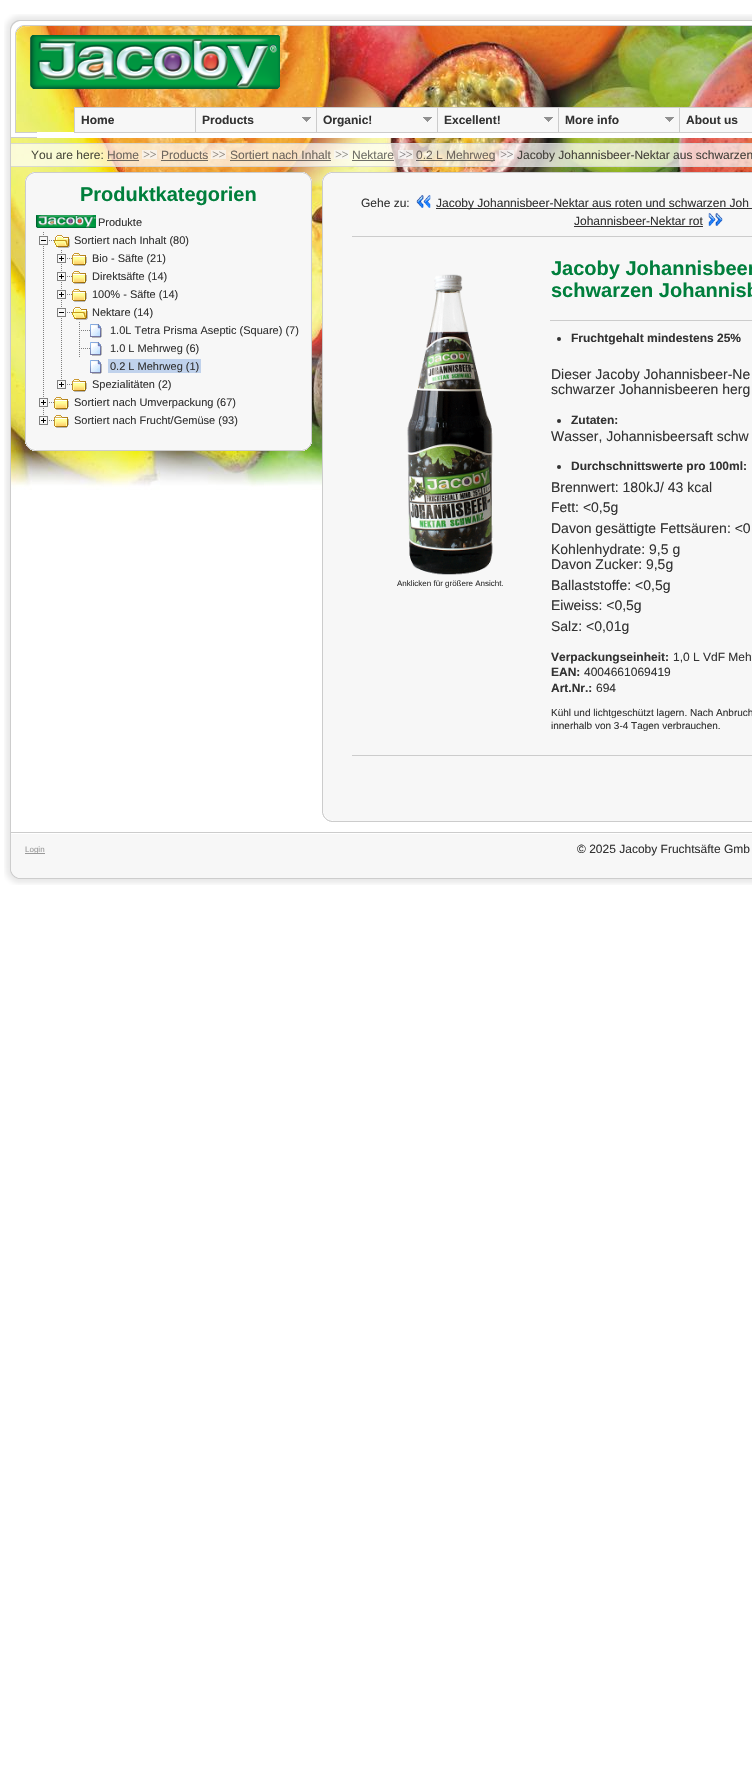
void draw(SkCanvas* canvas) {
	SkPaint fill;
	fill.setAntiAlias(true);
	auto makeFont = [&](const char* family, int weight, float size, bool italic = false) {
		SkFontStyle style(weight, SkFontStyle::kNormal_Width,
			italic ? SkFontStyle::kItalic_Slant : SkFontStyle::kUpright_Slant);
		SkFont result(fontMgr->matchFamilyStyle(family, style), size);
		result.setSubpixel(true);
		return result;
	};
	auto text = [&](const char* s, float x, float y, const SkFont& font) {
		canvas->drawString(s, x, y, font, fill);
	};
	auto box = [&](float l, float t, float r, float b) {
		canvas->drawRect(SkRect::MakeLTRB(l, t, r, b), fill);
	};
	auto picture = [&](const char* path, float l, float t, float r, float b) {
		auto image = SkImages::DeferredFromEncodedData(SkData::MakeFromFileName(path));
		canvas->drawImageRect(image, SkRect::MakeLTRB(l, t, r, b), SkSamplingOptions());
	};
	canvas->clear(0xFFFFFFFF);
	picture("image0.png", 11, 26, 752, 490);
	picture("image1.png", 0, 125, 11, 832);
	picture("image2.png", 0, 10, 752, 26);
	picture("image3.png", 0, 14, 30, 125);
	picture("image4.png", 30, 35, 280, 89);
	fill.setColor(0xFFFFFFFF);
	box(37, 132, 752, 138);
	fill.setColor(0xFFF7F7F7);
	canvas->drawRect(SkRect::MakeLTRB(74.5f, 107.5f, 195.5f, 132.5f), fill);
	fill.setStyle(SkPaint::kStroke_Style);
	fill.setStrokeWidth(1);
	fill.setColor(0xFFCCCCCC);
	canvas->drawRect(SkRect::MakeLTRB(74.5f, 107.5f, 195.5f, 132.5f), fill);
	canvas->drawRect(SkRect::MakeLTRB(195.5f, 107.5f, 316.5f, 132.5f), fill);
	fill.setStyle(SkPaint::kFill_Style);
	fill.setColor(0xFFF7F7F7);
	box(196, 108, 316, 132);
	picture("image5.png", 302, 117, 311, 122);
	canvas->drawRect(SkRect::MakeLTRB(316.5f, 107.5f, 437.5f, 132.5f), fill);
	fill.setStyle(SkPaint::kStroke_Style);
	fill.setColor(0xFFCCCCCC);
	canvas->drawRect(SkRect::MakeLTRB(316.5f, 107.5f, 437.5f, 132.5f), fill);
	picture("image5.png", 423, 117, 432, 122);
	fill.setStyle(SkPaint::kFill_Style);
	fill.setColor(0xFFF7F7F7);
	canvas->drawRect(SkRect::MakeLTRB(437.5f, 107.5f, 558.5f, 132.5f), fill);
	fill.setStyle(SkPaint::kStroke_Style);
	fill.setColor(0xFFCCCCCC);
	canvas->drawRect(SkRect::MakeLTRB(437.5f, 107.5f, 558.5f, 132.5f), fill);
	picture("image5.png", 544, 117, 553, 122);
	fill.setStyle(SkPaint::kFill_Style);
	fill.setColor(0xFFF7F7F7);
	canvas->drawRect(SkRect::MakeLTRB(558.5f, 107.5f, 679.5f, 132.5f), fill);
	fill.setStyle(SkPaint::kStroke_Style);
	fill.setColor(0xFFCCCCCC);
	canvas->drawRect(SkRect::MakeLTRB(558.5f, 107.5f, 679.5f, 132.5f), fill);
	picture("image5.png", 665, 117, 674, 122);
	fill.setStyle(SkPaint::kFill_Style);
	fill.setColor(0xFFF7F7F7);
	canvas->drawRect(SkRect::MakeLTRB(679.5f, 107.5f, 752.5f, 132.5f), fill);
	fill.setStyle(SkPaint::kStroke_Style);
	fill.setColor(0xFFCCCCCC);
	canvas->drawRect(SkRect::MakeLTRB(679.5f, 107.5f, 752.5f, 132.5f), fill);
	picture("image6.png", 11, 125, 37, 138);
	fill.setStyle(SkPaint::kFill_Style);
	fill.setColor(0xB3FFFFFF);
	box(11, 143, 752, 167);
	fill.setColor(0xB3CCCCCC);
	box(11, 143, 752, 144);
	box(11, 166, 752, 167);
	fill.setColor(0xB3333333);
	box(107, 160, 139, 161);
	picture("image7.png", 142, 150, 157, 159);
	box(161, 160, 208, 161);
	picture("image8.png", 211, 150, 226, 159);
	box(230, 160, 331, 161);
	picture("image9.png", 334, 150, 349, 159);
	box(352, 160, 394, 161);
	picture("image10.png", 398, 150, 413, 159);
	box(416, 160, 495, 161);
	picture("image11.png", 499, 150, 514, 159);
	picture("image12.png", 25, 172, 38, 182);
	fill.setColor(0xFFF7F7F7);
	box(38, 173, 299, 182);
	fill.setColor(0xFFCDCDCD);
	box(38, 172, 299, 173);
	picture("image13.png", 299, 172, 312, 182);
	fill.setColor(0xFFF7F7F7);
	box(26, 182, 311, 438);
	fill.setColor(0xFFCCCCCC);
	box(311, 182, 312, 438);
	box(25, 182, 26, 438);
	picture("image14.png", 36, 215, 96, 228);
	picture("image15.png", 39, 232, 54, 249);
	picture("image16.png", 54, 235, 70, 248);
	picture("image17.png", 43, 250, 44, 267);
	picture("image18.png", 57, 250, 72, 267);
	picture("image19.png", 72, 253, 87, 266);
	picture("image17.png", 43, 268, 44, 285);
	picture("image18.png", 57, 268, 72, 285);
	picture("image19.png", 72, 271, 87, 284);
	picture("image17.png", 43, 286, 44, 303);
	picture("image18.png", 57, 286, 72, 303);
	picture("image19.png", 72, 289, 87, 302);
	picture("image17.png", 43, 304, 44, 321);
	picture("image15.png", 57, 304, 72, 321);
	picture("image16.png", 72, 307, 88, 320);
	picture("image17.png", 43, 322, 44, 339);
	picture("image17.png", 61, 322, 62, 339);
	picture("image20.png", 79, 322, 90, 339);
	picture("image21.png", 90, 324, 102, 338);
	picture("image17.png", 43, 340, 44, 357);
	picture("image17.png", 61, 340, 62, 357);
	picture("image20.png", 79, 340, 90, 357);
	picture("image21.png", 90, 342, 102, 356);
	picture("image17.png", 43, 358, 44, 375);
	picture("image17.png", 61, 358, 62, 375);
	picture("image21.png", 90, 360, 102, 374);
	fill.setColor(0xFFC0D2EC);
	box(108, 359, 201, 373);
	picture("image17.png", 43, 376, 44, 393);
	picture("image22.png", 57, 376, 72, 389);
	picture("image19.png", 72, 379, 87, 392);
	picture("image18.png", 39, 394, 54, 411);
	picture("image19.png", 54, 397, 69, 410);
	picture("image22.png", 39, 412, 54, 425);
	picture("image19.png", 54, 415, 69, 428);
	picture("image23.png", 25, 438, 38, 451);
	fill.setColor(0xFFF7F7F7);
	box(38, 438, 299, 450);
	fill.setColor(0xFFCCCCCC);
	box(38, 450, 299, 451);
	picture("image24.png", 299, 438, 312, 451);
	picture("image25.png", 322, 172, 335, 182);
	fill.setColor(0xFFF7F7F7);
	box(335, 173, 752, 182);
	fill.setColor(0xFFCDCDCD);
	box(335, 172, 752, 173);
	fill.setColor(0xFFF7F7F7);
	box(323, 182, 752, 809);
	fill.setColor(0xFFCCCCCC);
	box(322, 182, 323, 809);
	picture("image26.png", 416, 195, 431, 208);
	fill.setColor(0xFF333333);
	box(436, 208, 752, 209);
	box(574, 226, 703, 227);
	picture("image27.png", 708, 213, 723, 226);
	fill.setColor(0xFFCCCCCC);
	box(352, 236, 752, 237);
	picture("image28.png", 407, 274, 493, 575);
	box(550, 320, 752, 321);
	fill.setColor(0xFF333333);
	canvas->drawCircle(559, 339, 2, fill);
	canvas->drawCircle(559, 421, 2, fill);
	canvas->drawCircle(559, 467, 2, fill);
	fill.setColor(0xFFCCCCCC);
	box(352, 755, 752, 756);
	picture("image29.png", 322, 809, 335, 822);
	fill.setColor(0xFFF7F7F7);
	box(335, 809, 752, 821);
	fill.setColor(0xFFCCCCCC);
	box(335, 821, 752, 822);
	picture("image30.png", 0, 832, 752, 889);
	picture("image31.png", 0, 832, 18, 885);
	fill.setColor(0xFF999999);
	box(25, 853, 45, 854);
	auto font1 = makeFont("Liberation Sans", 700, 12);
	fill.setColor(0xFF333333);
	text("Home", 81, 124, font1);
	text("Products", 202, 124, font1);
	text("Organic!", 323, 124, font1);
	text("Excellent!", 444, 124, font1);
	text("More info", 565, 124, font1);
	text("About us", 686, 124, font1);
	auto font2 = makeFont("Liberation Sans", 400, 12);
	fill.setColor(0xFF4B4B3D);
	text("You are here:", 31, 159, font2);
	fill.setColor(0xFF6E665E);
	text("Home", 107, 159, font2);
	text("Products", 161, 159, font2);
	text("Sortiert nach Inhalt", 230, 159, font2);
	fill.setColor(0xFF6F6F68);
	text("Nektare", 352, 159, font2);
	fill.setColor(0xFF6E665E);
	text("0.2 L Mehrweg", 416, 159, font2);
	fill.setColor(0xFF44413B);
	text("Jacoby Johannisbeer-Nektar aus schwarzen", 517, 159, font2);
	auto font3 = makeFont("Liberation Sans", 700, 20);
	fill.setColor(0xFF007F3C);
	text("Produktkategorien", 80, 201, font3);
	auto font4 = makeFont("Liberation Sans", 400, 11);
	fill.setColor(0xFF333333);
	text("Produkte", 98, 226, font4);
	text("Sortiert nach Inhalt (80)", 74, 244, font4);
	text("Bio - Säfte (21)", 92, 262, font4);
	text("Direktsäfte (14)", 92, 280, font4);
	text("100% - Säfte (14)", 92, 298, font4);
	text("Nektare (14)", 92, 316, font4);
	text("1.0L Tetra Prisma Aseptic (Square) (7)", 110, 334, font4);
	text("1.0 L Mehrweg (6)", 110, 352, font4);
	text("0.2 L Mehrweg (1)", 110, 370, font4);
	text("Spezialitäten (2)", 92, 388, font4);
	text("Sortiert nach Umverpackung (67)", 74, 406, font4);
	text("Sortiert nach Frucht/Gemüse (93)", 74, 424, font4);
	text("Gehe zu:", 361, 207, font2);
	text("Jacoby Johannisbeer-Nektar aus roten und schwarzen Joh", 436, 207, font2);
	text("Johannisbeer-Nektar rot", 574, 225, font2);
	fill.setColor(0xFF007F3C);
	text("Jacoby Johannisbeer", 551, 275, font3);
	text("schwarzen Johannisb", 551, 297, font3);
	auto font5 = makeFont("Liberation Sans", 400, 8);
	fill.setColor(0xFF333333);
	text("Anklicken für größere Ansicht.", 397, 586, font5);
	text("Fruchtgehalt mindestens 25%", 571, 342, font1);
	auto font6 = makeFont("Liberation Sans", 400, 14);
	text("Dieser Jacoby Johannisbeer-Ne", 551, 379, font6);
	text("schwarzer Johannisbeeren herg", 551, 394, font6);
	text("Zutaten:", 571, 424, font1);
	text("Wasser, Johannisbeersaft schw", 551, 441, font6);
	text("Durchschnittswerte pro 100ml:", 571, 470, font1);
	text("Brennwert: 180kJ/ 43 kcal", 551, 492, font6);
	text("Fett: <0,5g", 551, 512, font6);
	text("Davon gesättigte Fettsäuren: <0", 551, 533, font6);
	text("Kohlenhydrate: 9,5 g", 551, 554, font6);
	text("Davon Zucker: 9,5g", 551, 569, font6);
	text("Ballaststoffe: <0,5g", 551, 590, font6);
	text("Eiweiss: <0,5g", 551, 610, font6);
	text("Salz: <0,01g", 551, 631, font6);
	text("Verpackungseinheit:", 551, 661, font1);
	text("1,0 L VdF Meh", 673, 661, font2);
	text("EAN:", 551, 676, font1);
	text("4004661069419", 584, 676, font2);
	text("Art.Nr.:", 551, 692, font1);
	text("694", 596, 692, font2);
	auto font7 = makeFont("Liberation Sans", 400, 10);
	text("Kühl und lichtgeschützt lagern. Nach Anbruch", 551, 716, font7);
	text("innerhalb von 3-4 Tagen verbrauchen.", 551, 729, font7);
	fill.setColor(0xFF999999);
	text("Login", 25, 852, font5);
	fill.setColor(0xFF333333);
	text("© 2025 Jacoby Fruchtsäfte Gmb", 577, 853, font2);
}
